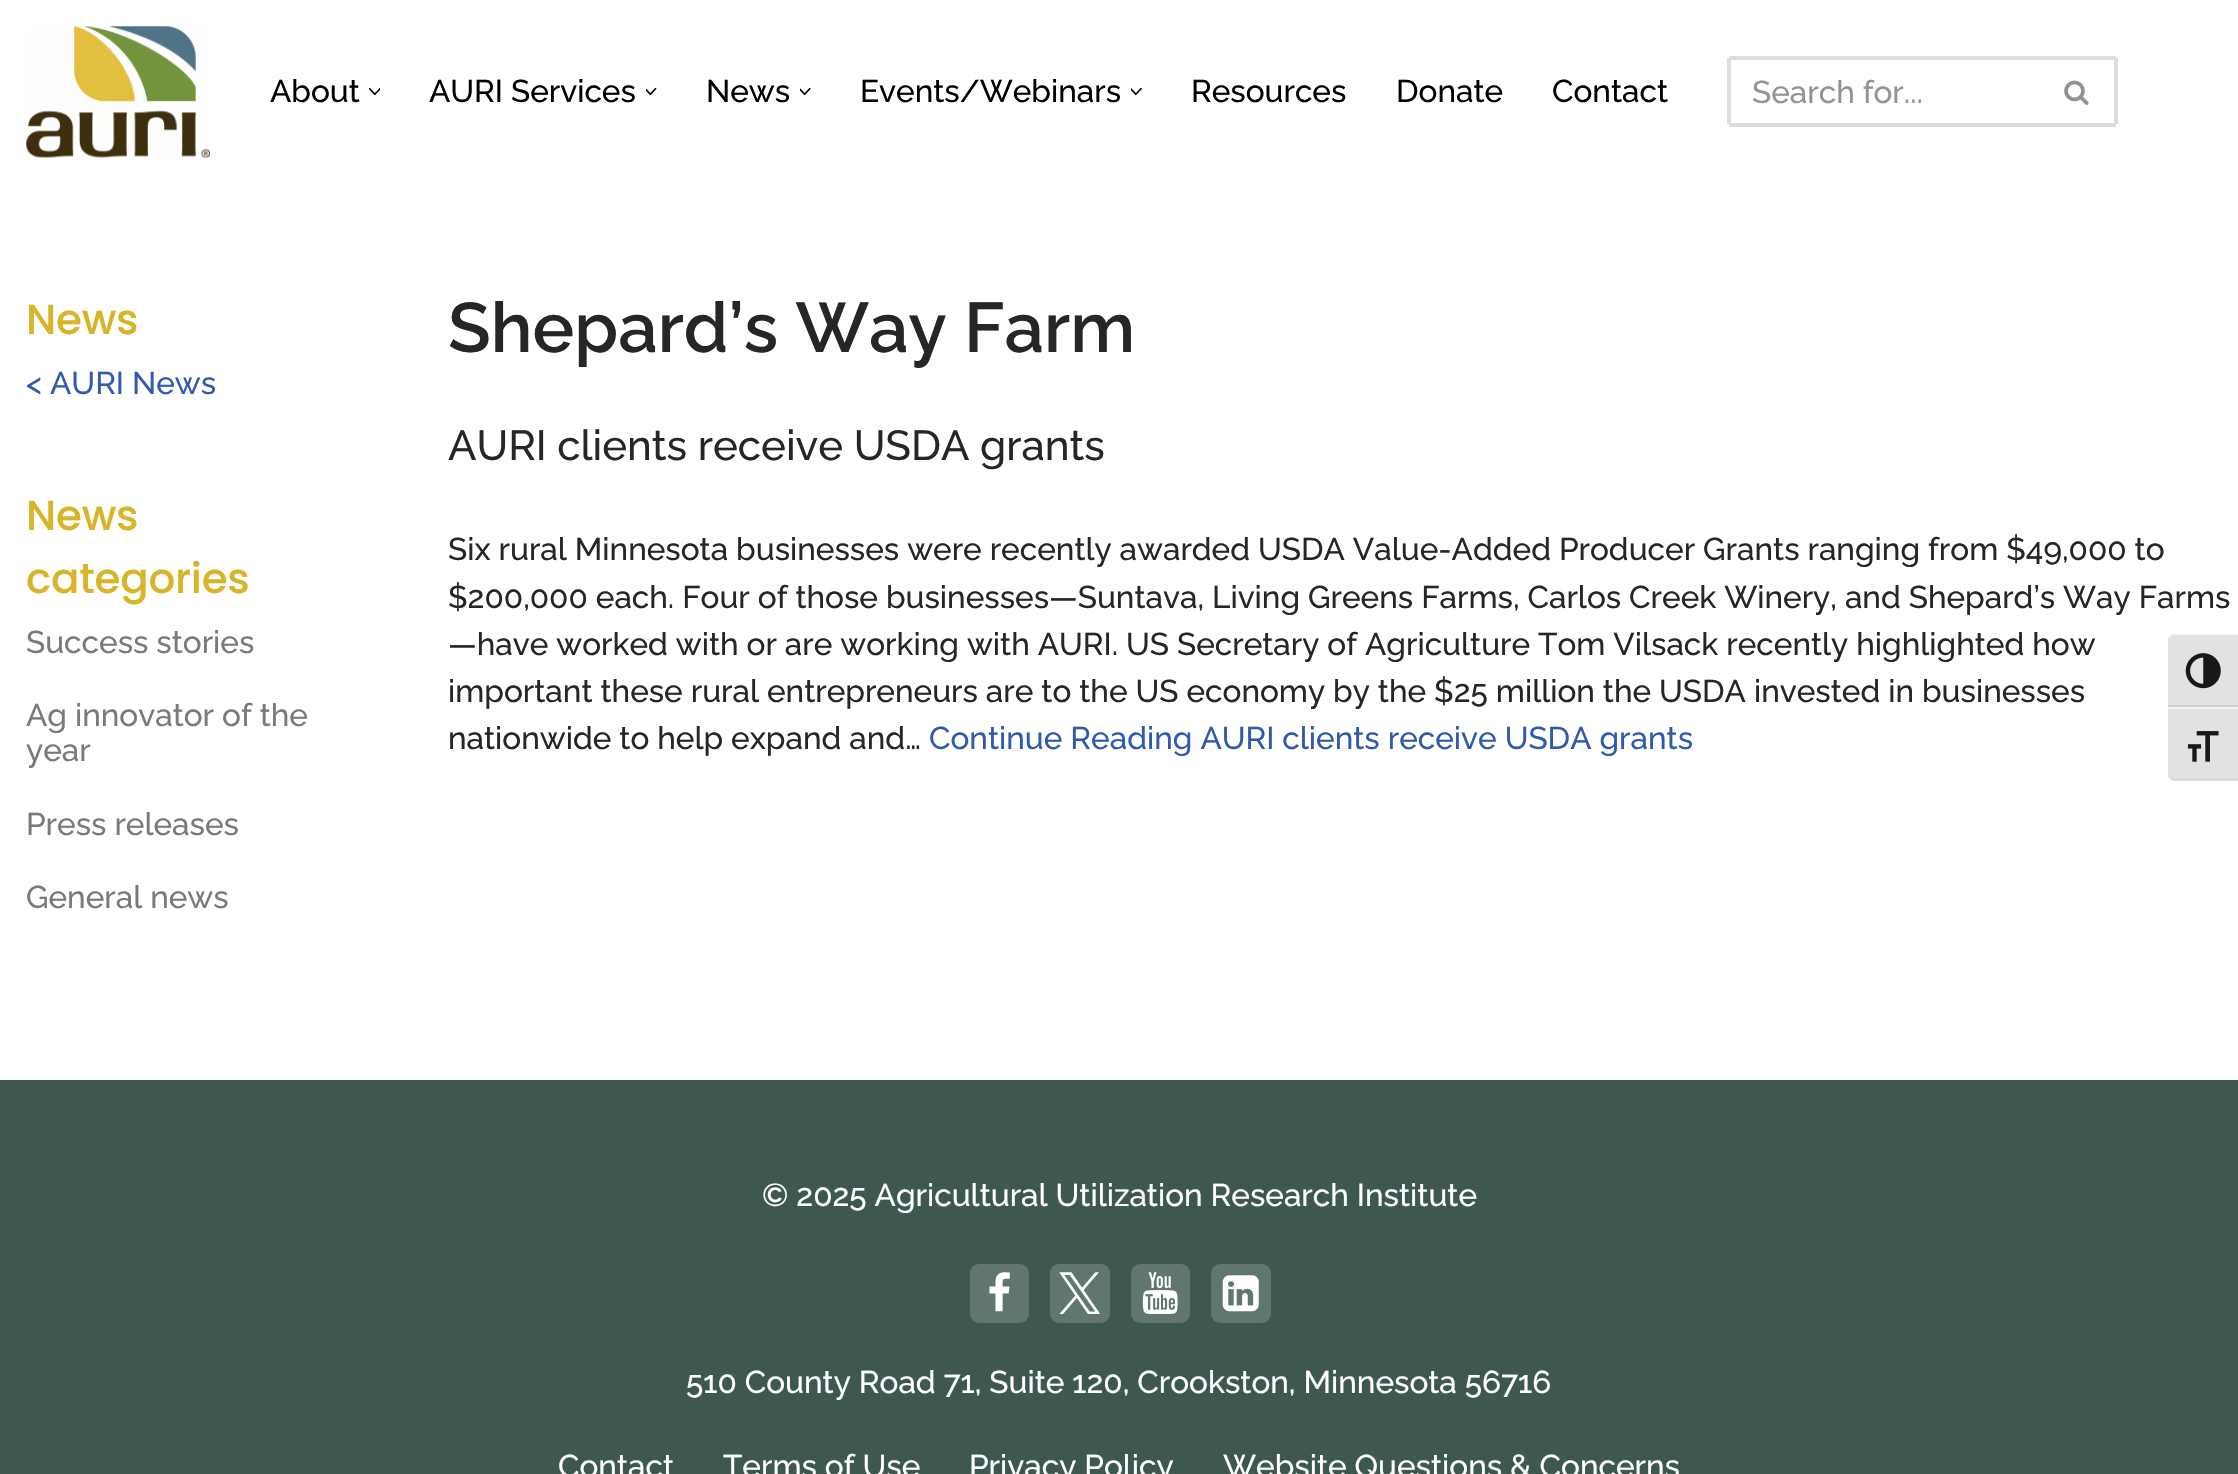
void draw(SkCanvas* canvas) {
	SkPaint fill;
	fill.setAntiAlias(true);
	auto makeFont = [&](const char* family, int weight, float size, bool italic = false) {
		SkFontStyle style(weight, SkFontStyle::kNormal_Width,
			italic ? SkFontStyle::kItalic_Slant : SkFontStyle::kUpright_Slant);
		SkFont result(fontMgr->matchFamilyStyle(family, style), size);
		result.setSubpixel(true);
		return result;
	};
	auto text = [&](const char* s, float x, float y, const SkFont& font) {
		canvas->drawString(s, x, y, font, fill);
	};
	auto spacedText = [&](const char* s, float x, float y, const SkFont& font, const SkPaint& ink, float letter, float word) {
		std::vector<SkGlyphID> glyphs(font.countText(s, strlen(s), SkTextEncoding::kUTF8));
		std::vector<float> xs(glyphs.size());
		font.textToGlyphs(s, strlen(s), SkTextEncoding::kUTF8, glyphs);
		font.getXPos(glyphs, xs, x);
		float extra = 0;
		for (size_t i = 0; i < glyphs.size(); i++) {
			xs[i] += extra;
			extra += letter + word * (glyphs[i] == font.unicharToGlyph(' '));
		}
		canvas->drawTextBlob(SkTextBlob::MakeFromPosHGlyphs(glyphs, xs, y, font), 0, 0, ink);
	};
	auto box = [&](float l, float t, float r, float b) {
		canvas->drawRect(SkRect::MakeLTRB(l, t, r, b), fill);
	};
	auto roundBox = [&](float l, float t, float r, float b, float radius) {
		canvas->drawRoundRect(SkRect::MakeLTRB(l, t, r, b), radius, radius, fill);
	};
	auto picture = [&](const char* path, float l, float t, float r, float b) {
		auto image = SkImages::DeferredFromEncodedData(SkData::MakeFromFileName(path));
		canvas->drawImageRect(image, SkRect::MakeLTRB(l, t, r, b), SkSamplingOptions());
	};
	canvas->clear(0xFFFFFFFF);
	picture("image0.png", 26, 26, 210, 158);
	picture("image1.png", 368, 87, 380, 96);
	picture("image2.png", 646, 87, 657, 96);
	picture("image3.png", 800, 87, 811, 96);
	picture("image4.png", 1131, 87, 1142, 96);
	fill.setColor(0xFFDDDDDD);
	box(1729, 56, 2116, 60);
	box(1729, 123, 2039, 127);
	box(1727, 58, 1731, 124);
	box(2114, 58, 2118, 124);
	box(2039, 123, 2116, 127);
	picture("image5.png", 2064, 80, 2089, 105);
	fill.setColor(0xFF3E584F);
	box(0, 1080, 2238, 1474);
	fill.setColor(0xFF61766F);
	roundBox(970, 1264, 1029, 1323, 9);
	picture("image6.png", 989, 1272, 1010, 1312);
	roundBox(1050, 1264, 1110, 1323, 9);
	picture("image7.png", 1059, 1272, 1100, 1314);
	roundBox(1131, 1264, 1190, 1323, 9);
	picture("image8.png", 1142, 1272, 1178, 1314);
	roundBox(1211, 1264, 1271, 1323, 9);
	picture("image9.png", 1222, 1275, 1259, 1312);
	fill.setColor(0xFFE2E2E2);
	canvas->drawPath(SkPathBuilder().moveTo(2175, 634).lineTo(2238, 634).lineTo(2238, 707).lineTo(2168, 707).lineTo(2168, 641).cubicTo(2168, 637, 2171, 634, 2175, 634).close().detach(), fill);
	fill.setColor(0xFFF5F5F5);
	canvas->drawPath(SkPathBuilder().moveTo(2175, 634).lineTo(2238, 634).lineTo(2238, 635).lineTo(2175, 635).cubicTo(2172, 635, 2169, 637, 2168, 639).cubicTo(2168, 636, 2172, 634, 2175, 634).close().detach(), fill);
	fill.setColor(0xFFD2D2D2);
	box(2168, 705, 2238, 707);
	picture("image10.png", 2185, 653, 2221, 689);
	fill.setColor(0xFFE2E2E2);
	canvas->drawPath(SkPathBuilder().moveTo(2168, 707).lineTo(2238, 707).lineTo(2238, 781).lineTo(2175, 781).cubicTo(2171, 781, 2168, 778, 2168, 774).close().detach(), fill);
	fill.setColor(0xFFF5F5F5);
	box(2168, 707, 2238, 709);
	fill.setColor(0xFFD2D2D2);
	canvas->drawPath(SkPathBuilder().moveTo(2238, 780).lineTo(2238, 779).lineTo(2175, 779).cubicTo(2172, 779, 2169, 777, 2168, 775).lineTo(2168, 776).cubicTo(2169, 778, 2172, 780, 2175, 780).close().detach(), fill);
	picture("image11.png", 2187, 731, 2219, 762);
	auto font1 = makeFont("Raleway", 500, 31.5f);
	fill.setColor(0xFF000000);
	text("About", 270, 102, font1);
	text("AURI Services", 429, 102, font1);
	text("News", 706, 102, font1);
	text("Events/Webinars", 860, 102, font1);
	text("Resources", 1191, 102, font1);
	text("Donate", 1396, 102, font1);
	text("Contact", 1552, 102, font1);
	fill.setColor(0xFF939393);
	text("Search for...", 1752, 103, font1);
	auto font2 = makeFont("Poppins", 500, 42);
	fill.setColor(0xFFD8B528);
	spacedText("News", 26, 334, font2, fill, -0.25f, 0);
	fill.setColor(0xFF2F5AAE);
	text("< AURI News", 26, 394, font1);
	fill.setColor(0xFFD8B528);
	spacedText("News", 26, 530, font2, fill, -0.25f, 0);
	spacedText("categories", 26, 593, font2, fill, -0.25f, 0);
	fill.setColor(0xFF7A7A7A);
	text("Success stories", 26, 653, font1);
	text("Ag innovator of the", 26, 726, font1);
	text("year", 26, 761, font1);
	text("Press releases", 26, 835, font1);
	text("General news", 26, 908, font1);
	auto font3 = makeFont("Raleway", 600, 70);
	fill.setColor(0xFF272626);
	text("Shepard’s Way Farm", 448, 352, font3);
	auto font4 = makeFont("Raleway", 500, 42);
	text("AURI clients receive USDA grants", 448, 460, font4);
	text("Six rural Minnesota businesses were recently awarded USDA Value-Added Producer Grants ranging from $49,000 to", 448, 560, font1);
	text("$200,000 each. Four of those businesses—Suntava, Living Greens Farms, Carlos Creek Winery, and Shepard’s Way Farms", 448, 608, font1);
	text("—have worked with or are working with AURI. US Secretary of Agriculture Tom Vilsack recently highlighted how", 448, 655, font1);
	text("important these rural entrepreneurs are to the US economy by the $25 million the USDA invested in businesses", 448, 702, font1);
	text("nationwide to help expand and…", 448, 749, font1);
	fill.setColor(0xFF2F5AAE);
	text("Continue Reading AURI clients receive USDA grants", 929, 749, font1);
	fill.setColor(0xFFFFFFFF);
	text("© 2025 Agricultural Utilization Research Institute", 762, 1206, font1);
	text("510 County Road 71, Suite 120, Crookston, Minnesota 56716", 686, 1393, font1);
	text("Contact", 558, 1477, font1);
	text("Terms of Use", 723, 1477, font1);
	text("Privacy Policy", 969, 1477, font1);
	text("Website Questions & Concerns", 1223, 1477, font1);
}
